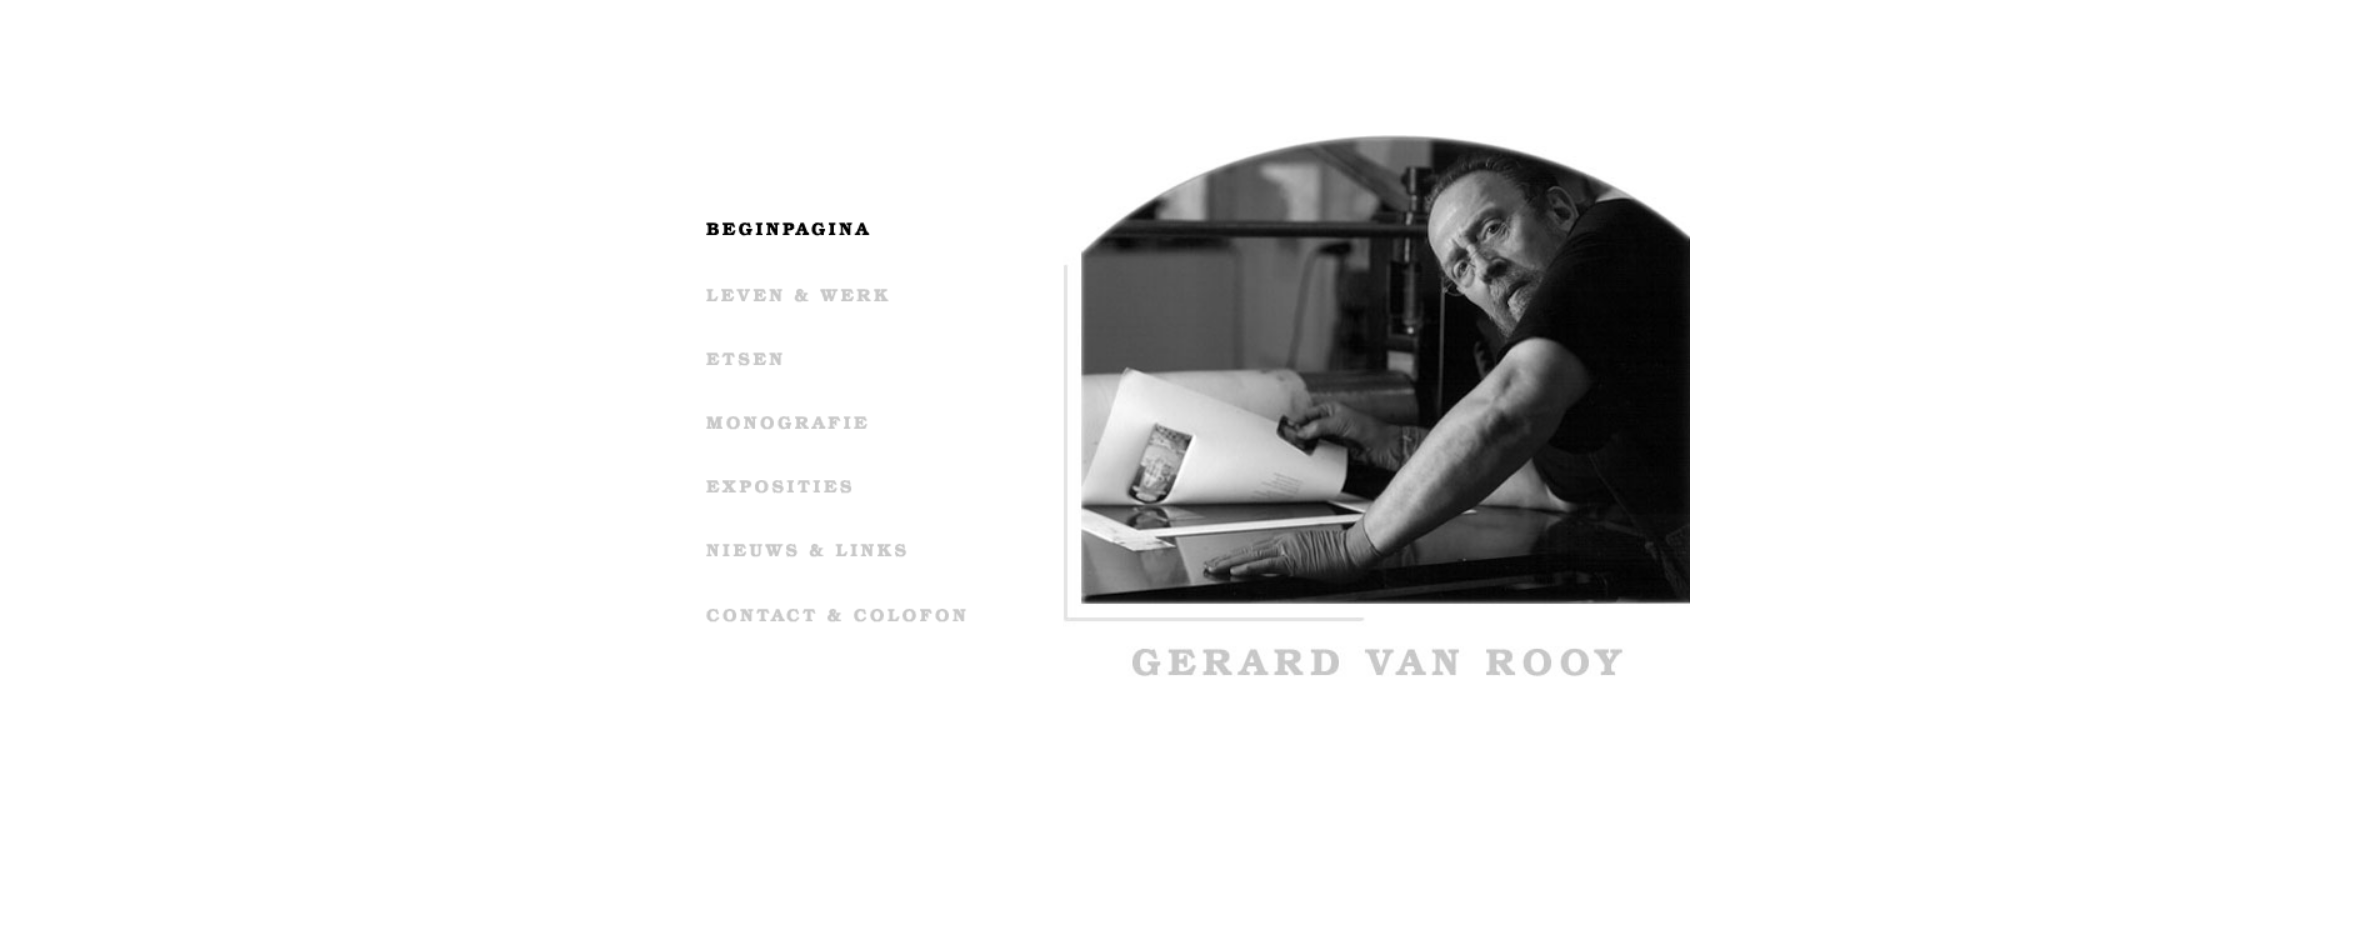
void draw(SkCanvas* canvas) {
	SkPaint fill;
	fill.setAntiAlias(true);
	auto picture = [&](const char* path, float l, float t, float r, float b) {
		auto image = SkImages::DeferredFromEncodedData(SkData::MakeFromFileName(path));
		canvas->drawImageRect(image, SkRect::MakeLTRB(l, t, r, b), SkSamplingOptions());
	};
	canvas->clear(0xFFFFFFFF);
	picture("image0.png", 706, 222, 870, 237);
	picture("image1.png", 1063, 135, 1690, 677);
	picture("image2.png", 706, 288, 889, 303);
	picture("image3.png", 706, 352, 783, 367);
	picture("image4.png", 706, 416, 868, 430);
	picture("image5.png", 706, 480, 852, 494);
	picture("image6.png", 706, 543, 907, 558);
	picture("image7.png", 706, 608, 967, 623);
}
